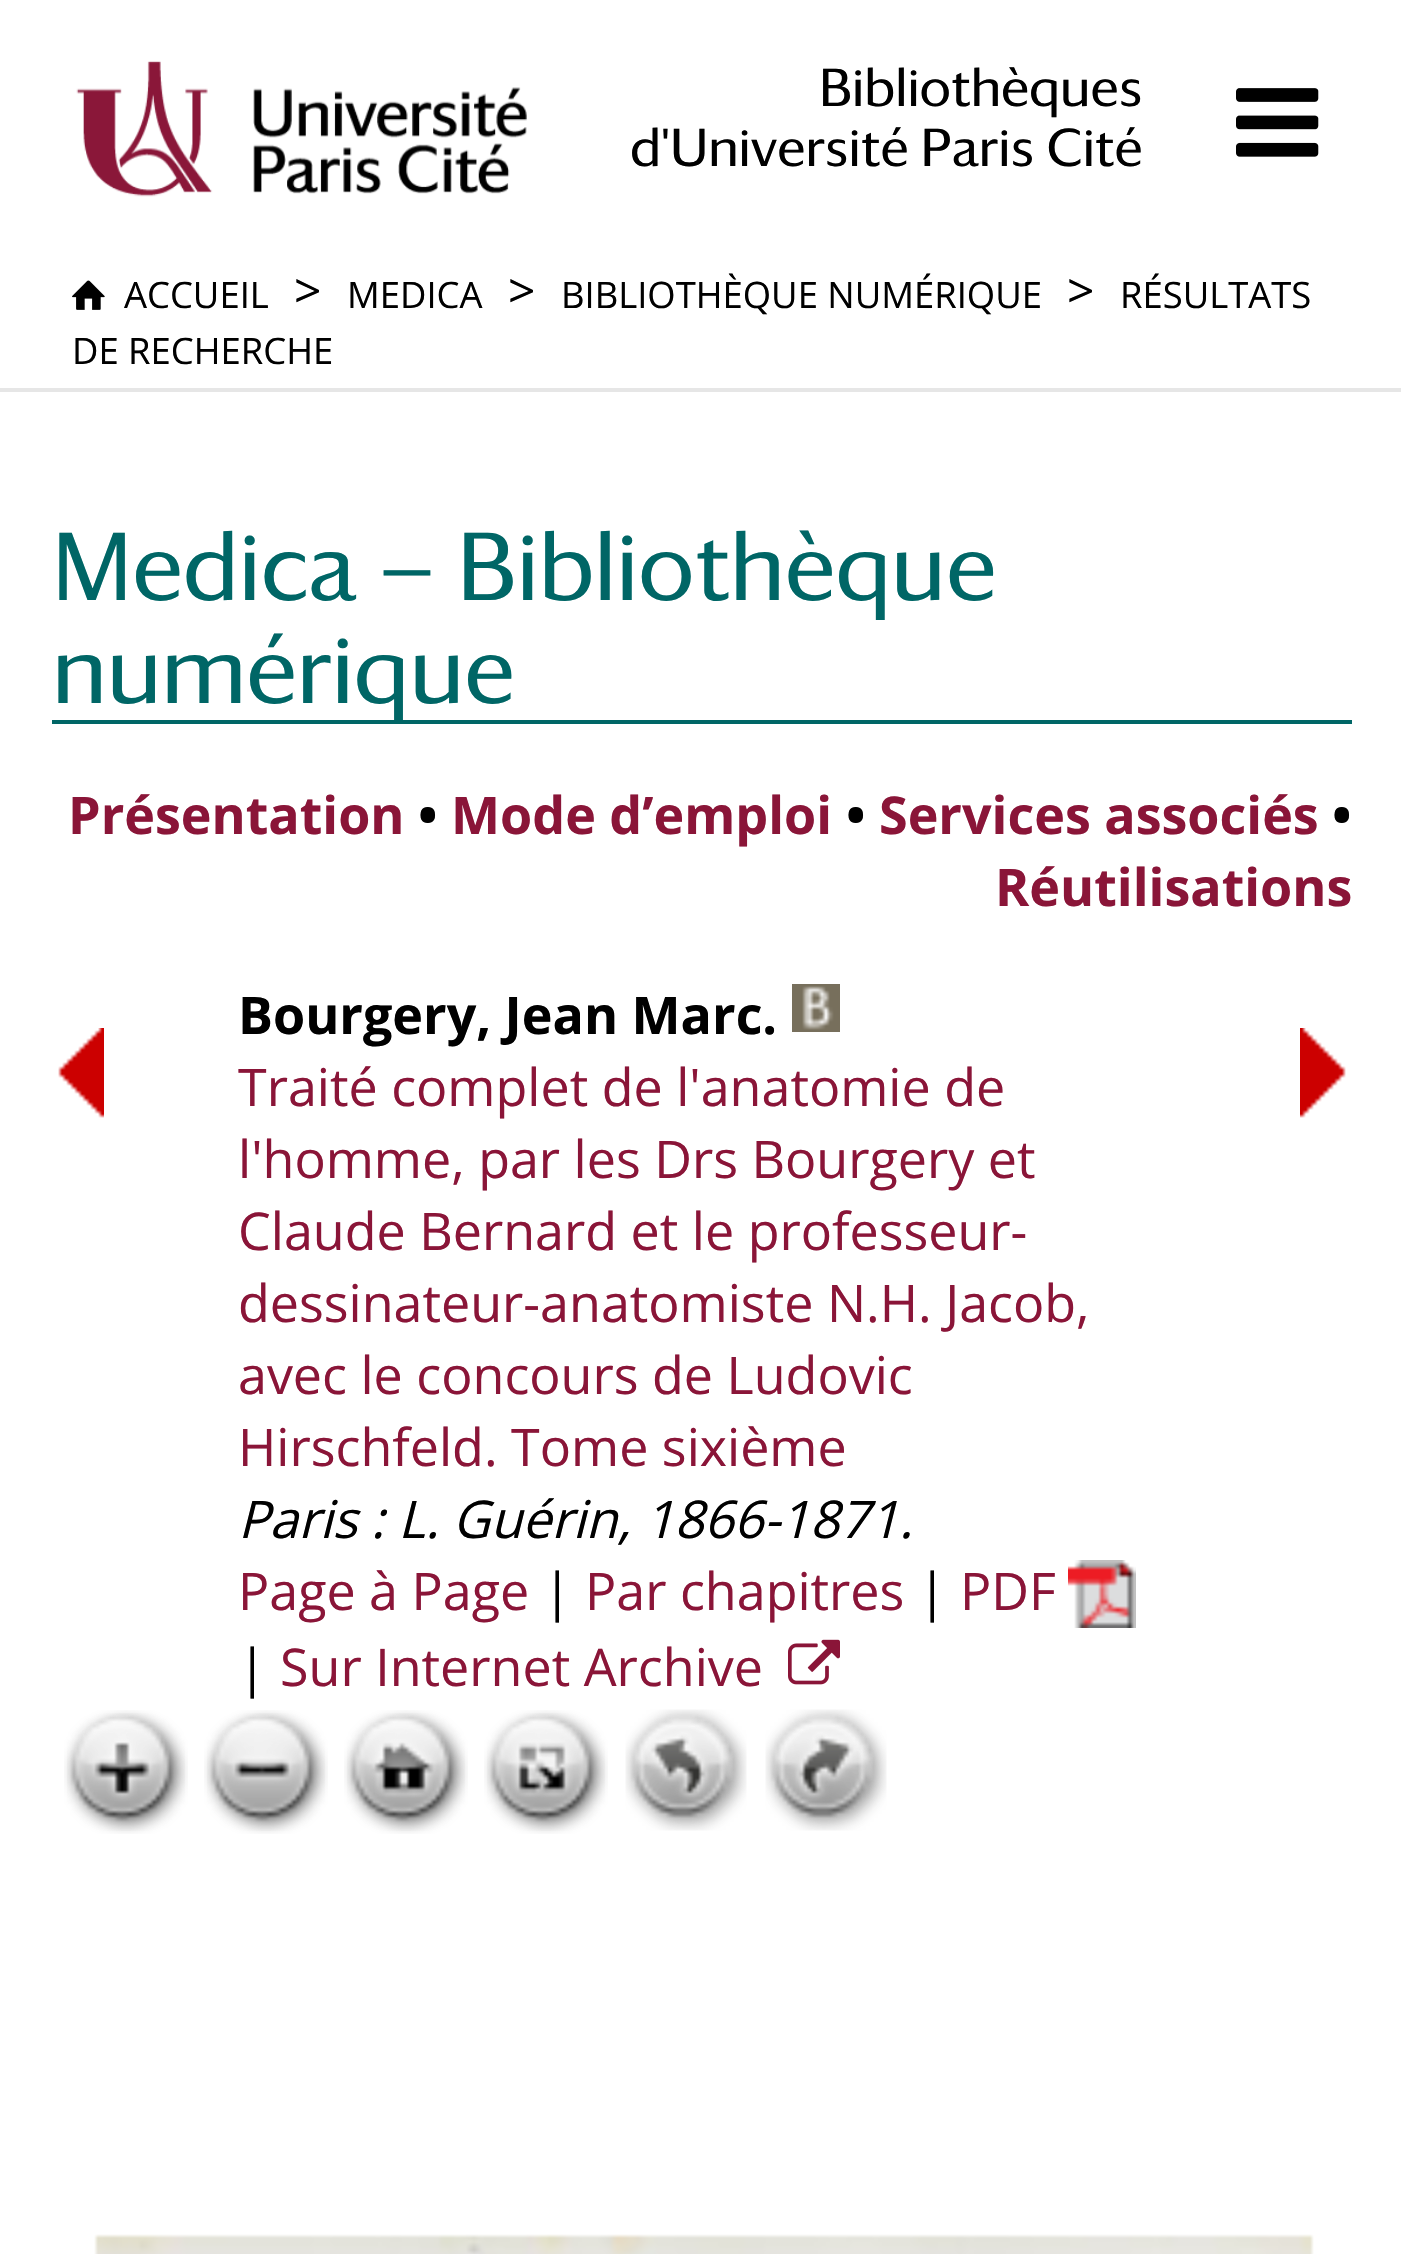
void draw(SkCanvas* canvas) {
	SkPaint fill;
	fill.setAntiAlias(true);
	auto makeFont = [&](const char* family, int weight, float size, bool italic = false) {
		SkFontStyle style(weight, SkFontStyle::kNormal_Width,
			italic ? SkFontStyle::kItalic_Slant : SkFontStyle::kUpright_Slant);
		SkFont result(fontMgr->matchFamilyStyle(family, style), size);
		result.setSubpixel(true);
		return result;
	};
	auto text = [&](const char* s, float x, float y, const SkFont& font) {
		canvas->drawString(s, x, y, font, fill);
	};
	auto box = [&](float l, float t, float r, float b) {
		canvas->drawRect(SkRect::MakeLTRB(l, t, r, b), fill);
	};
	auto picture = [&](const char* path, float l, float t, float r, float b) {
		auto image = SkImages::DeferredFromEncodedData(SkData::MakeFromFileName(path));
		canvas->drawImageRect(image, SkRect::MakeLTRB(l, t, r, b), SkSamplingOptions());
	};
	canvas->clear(0xFFFFFFFF);
	fill.setColor(0xFFE6E6E6);
	box(0, 388, 1401, 392);
	picture("image0.png", 76, 61, 527, 197);
	picture("image1.png", 1236, 88, 1319, 157);
	picture("image2.png", 72, 280, 105, 310);
	fill.setColor(0xFF006666);
	box(52, 720, 1352, 724);
	picture("image3.png", 58, 1028, 104, 1118);
	picture("image4.png", 792, 984, 840, 1032);
	picture("image5.png", 1068, 1560, 1136, 1628);
	picture("image6.png", 788, 1639, 840, 1685);
	picture("image7.png", 1300, 1028, 1346, 1118);
	picture("image8.png", 64, 1710, 188, 1834);
	picture("image9.png", 67, 1713, 185, 1831);
	picture("image10.png", 204, 1710, 328, 1834);
	picture("image11.png", 207, 1713, 325, 1831);
	picture("image12.png", 344, 1710, 468, 1834);
	picture("image13.png", 347, 1713, 465, 1831);
	picture("image14.png", 484, 1710, 608, 1834);
	picture("image15.png", 487, 1713, 605, 1831);
	picture("image16.png", 625, 1709, 747, 1831);
	picture("image17.png", 626, 1710, 746, 1830);
	picture("image18.png", 765, 1709, 887, 1831);
	picture("image19.png", 766, 1710, 886, 1830);
	picture("image20.png", 94, 2234, 1314, 2254);
	auto font1 = makeFont("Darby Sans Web", 400, 52);
	fill.setColor(0xFF000000);
	text("Bibliothèques", 819, 106, font1);
	text("d'Université Paris Cité", 630, 166, font1);
	auto font2 = makeFont("Open Sans", 400, 36.4f);
	text("ACCUEIL", 124, 308, font2);
	auto font3 = makeFont("Open Sans", 400, 48);
	text(">", 294, 308, font3);
	text("MEDICA", 347, 308, font2);
	text(">", 508, 308, font3);
	text("BIBLIOTHÈQUE NUMÉRIQUE", 561, 308, font2);
	text(">", 1067, 308, font3);
	text("RÉSULTATS", 1120, 308, font2);
	text("DE RECHERCHE", 72, 364, font2);
	auto font4 = makeFont("Darby Sans Web", 400, 93.6f);
	fill.setColor(0xFF006666);
	text("Medica — Bibliothèque", 52, 600, font4);
	text("numérique", 52, 703, font4);
	auto font5 = makeFont("Open Sans", 700, 52);
	fill.setColor(0xFF8A1538);
	text("Présentation", 68, 834, font5);
	fill.setColor(0xFF000000);
	text("•", 418, 834, font5);
	fill.setColor(0xFF8A1538);
	text("Mode d’emploi", 451, 834, font5);
	fill.setColor(0xFF000000);
	text("•", 846, 834, font5);
	fill.setColor(0xFF8A1538);
	text("Services associés", 879, 834, font5);
	fill.setColor(0xFF000000);
	text("•", 1332, 834, font5);
	fill.setColor(0xFF8A1538);
	text("Réutilisations", 995, 906, font5);
	fill.setColor(0xFF000000);
	text("Bourgery, Jean Marc.", 238, 1034, font5);
	auto font6 = makeFont("Open Sans", 400, 52);
	fill.setColor(0xFF8A1538);
	text("Traité complet de l'anatomie de", 238, 1106, font6);
	text("l'homme, par les Drs Bourgery et", 238, 1178, font6);
	text("Claude Bernard et le professeur-", 238, 1250, font6);
	text("dessinateur-anatomiste N.H. Jacob,", 238, 1322, font6);
	text("avec le concours de Ludovic", 238, 1394, font6);
	text("Hirschfeld. Tome sixième", 238, 1466, font6);
	auto font7 = makeFont("Open Sans", 400, 52, true);
	fill.setColor(0xFF000000);
	text("Paris : L. Guérin, 1866-1871.", 238, 1538, font7);
	fill.setColor(0xFF8A1538);
	text("Page à Page", 238, 1610, font6);
	fill.setColor(0xFF000000);
	text("|", 543, 1610, font6);
	fill.setColor(0xFF8A1538);
	text("Par chapitres", 585, 1610, font6);
	fill.setColor(0xFF000000);
	text("|", 918, 1610, font6);
	fill.setColor(0xFF8A1538);
	text("PDF", 960, 1610, font6);
	fill.setColor(0xFF000000);
	text("|", 238, 1686, font6);
	fill.setColor(0xFF8A1538);
	text("Sur Internet Archive", 280, 1686, font6);
}
